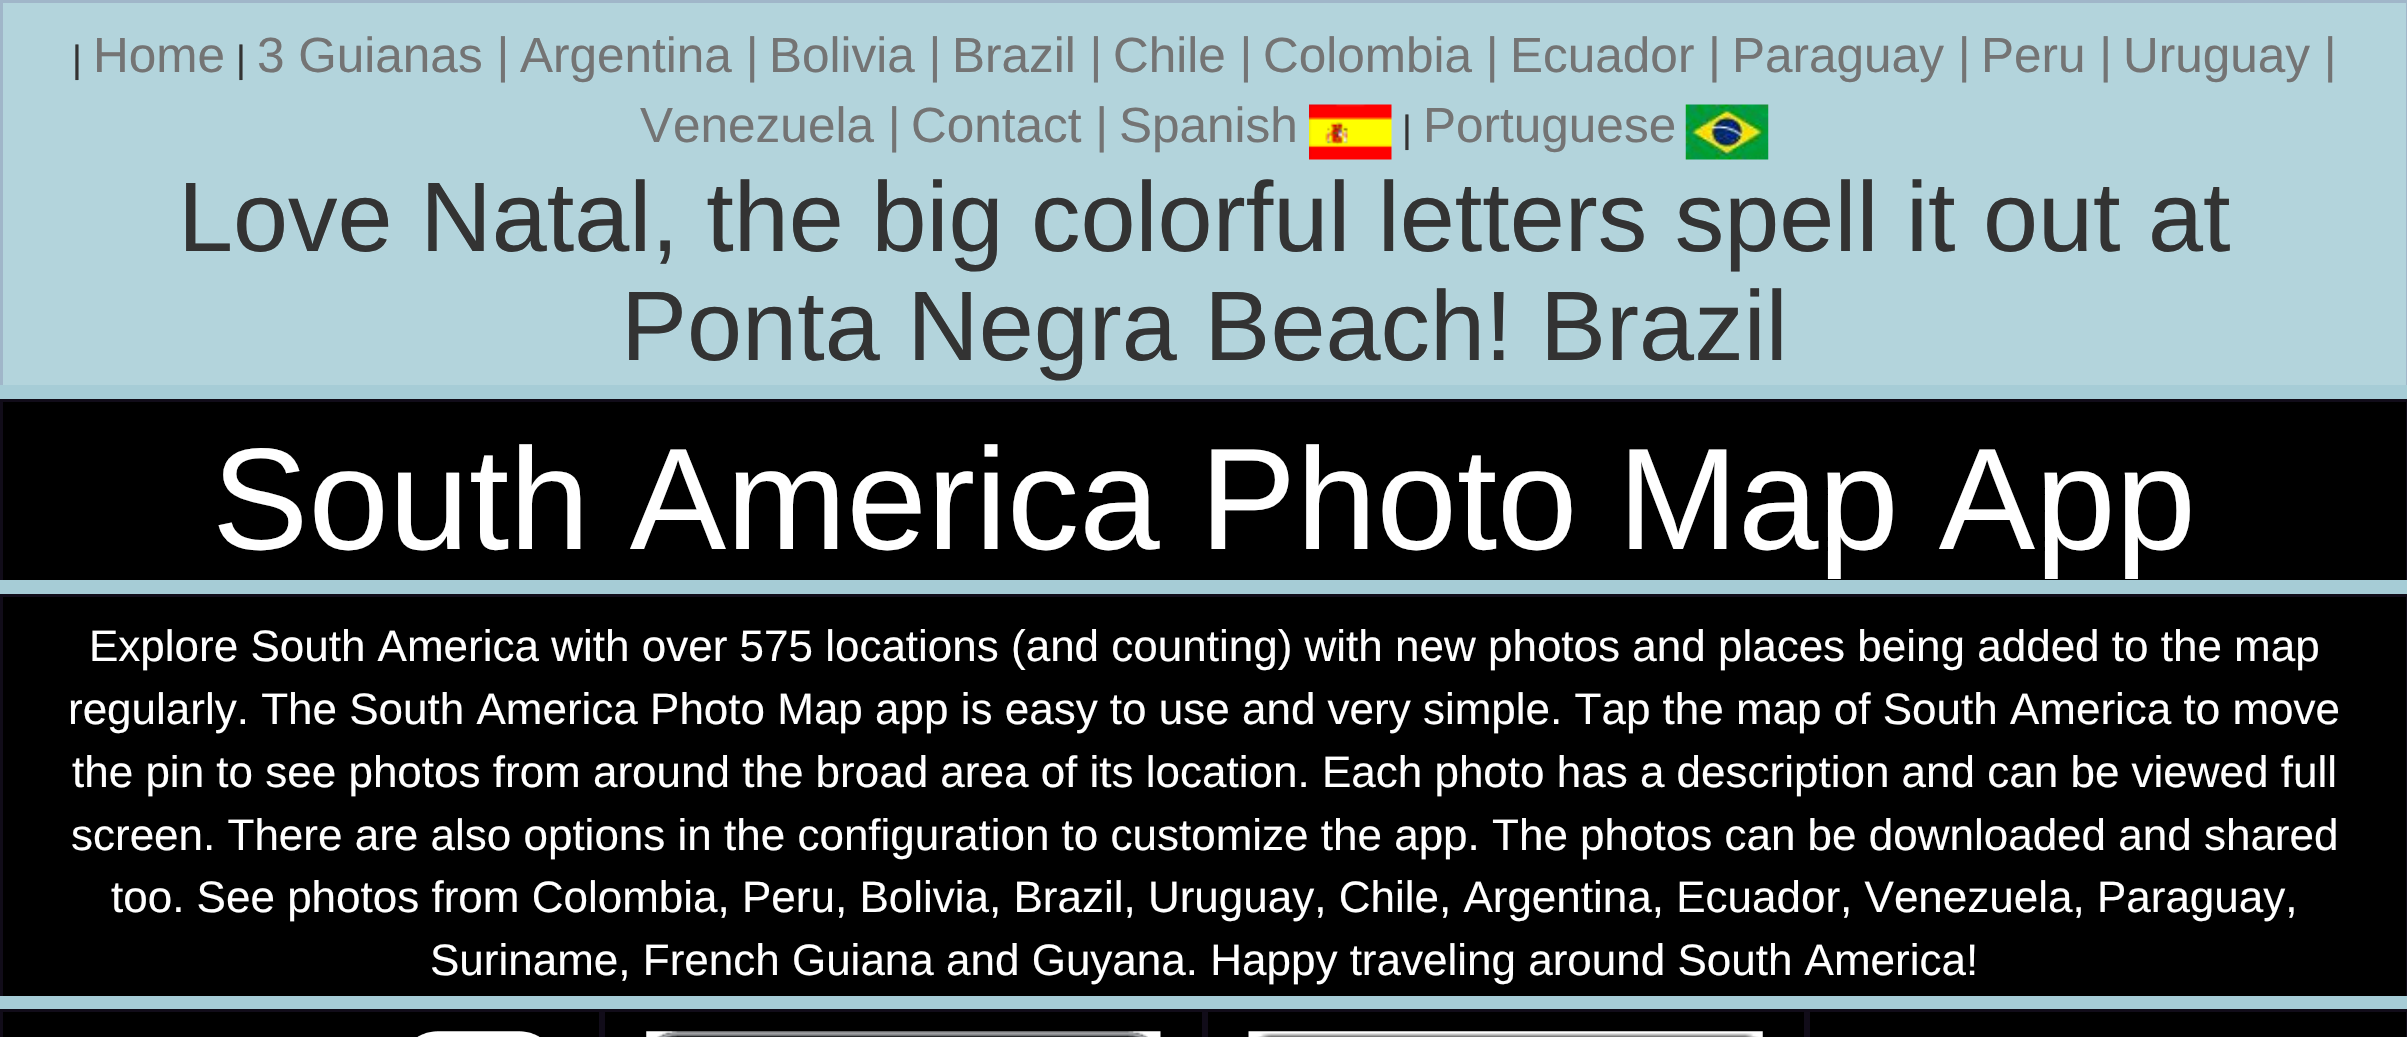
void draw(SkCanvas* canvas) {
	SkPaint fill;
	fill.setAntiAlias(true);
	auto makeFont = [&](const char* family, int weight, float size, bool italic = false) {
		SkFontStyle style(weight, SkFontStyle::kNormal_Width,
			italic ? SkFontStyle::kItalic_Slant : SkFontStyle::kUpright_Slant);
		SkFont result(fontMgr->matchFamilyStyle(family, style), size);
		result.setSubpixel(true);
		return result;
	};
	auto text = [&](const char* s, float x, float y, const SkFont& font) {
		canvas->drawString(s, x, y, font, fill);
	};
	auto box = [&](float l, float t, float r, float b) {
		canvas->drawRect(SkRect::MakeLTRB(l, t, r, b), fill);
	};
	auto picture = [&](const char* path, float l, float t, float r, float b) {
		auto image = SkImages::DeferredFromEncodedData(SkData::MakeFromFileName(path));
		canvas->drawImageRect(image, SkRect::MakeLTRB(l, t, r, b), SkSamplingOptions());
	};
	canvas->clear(0xFFA6CCD6);
	fill.setColor(0xFFB3D4DC);
	box(3, 3, 2406, 385);
	fill.setColor(0xFF000000);
	box(3, 1012, 2406, 1037);
	canvas->save();
	canvas->clipRect(SkRect::MakeLTRB(0, 0, 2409, 385));
	fill.setStyle(SkPaint::kStroke_Style);
	fill.setStrokeWidth(3);
	fill.setColor(0xFFA0B6C9);
	canvas->drawRect(SkRect::MakeLTRB(1.5f, 1.5f, 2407.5f, 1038.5f), fill);
	canvas->restore();
	picture("image0.png", 1309, 104, 1392, 160);
	picture("image1.png", 1685, 104, 1769, 160);
	fill.setStyle(SkPaint::kFill_Style);
	fill.setColor(0xFF000000);
	box(3, 402, 2406, 580);
	canvas->save();
	canvas->clipRect(SkRect::MakeLTRB(0, 399, 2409, 580));
	fill.setStyle(SkPaint::kStroke_Style);
	fill.setColor(0xFF110C19);
	canvas->drawRect(SkRect::MakeLTRB(1.5f, 400.5f, 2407.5f, 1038.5f), fill);
	canvas->restore();
	fill.setStyle(SkPaint::kFill_Style);
	fill.setColor(0xFF000000);
	box(3, 597, 2406, 996);
	canvas->save();
	canvas->clipRect(SkRect::MakeLTRB(0, 594, 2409, 996));
	fill.setStyle(SkPaint::kStroke_Style);
	fill.setColor(0xFF110C19);
	canvas->drawRect(SkRect::MakeLTRB(1.5f, 595.5f, 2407.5f, 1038.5f), fill);
	canvas->restore();
	canvas->drawRect(SkRect::MakeLTRB(1.5f, 1010.5f, 600.5f, 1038.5f), fill);
	picture("image2.png", 417, 1031, 540, 1037);
	canvas->drawRect(SkRect::MakeLTRB(603.5f, 1010.5f, 1203.5f, 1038.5f), fill);
	picture("image3.png", 646, 1031, 1161, 1037);
	canvas->drawRect(SkRect::MakeLTRB(1206.5f, 1010.5f, 1805.5f, 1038.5f), fill);
	picture("image4.png", 1248, 1031, 1763, 1037);
	canvas->drawRect(SkRect::MakeLTRB(1808.5f, 1010.5f, 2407.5f, 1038.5f), fill);
	auto font1 = makeFont("Liberation Sans", 400, 38);
	fill.setStyle(SkPaint::kFill_Style);
	fill.setColor(0xFF333333);
	text("|", 72, 72, font1);
	auto font2 = makeFont("Liberation Sans", 400, 49.5f);
	fill.setColor(0xFF747474);
	text("Home", 93, 72, font2);
	fill.setColor(0xFF333333);
	text("|", 236, 72, font1);
	fill.setColor(0xFF747474);
	text("3 Guianas |", 257, 72, font2);
	text("Argentina |", 520, 72, font2);
	text("Bolivia |", 769, 72, font2);
	text("Brazil |", 952, 72, font2);
	text("Chile |", 1113, 72, font2);
	text("Colombia |", 1263, 72, font2);
	text("Ecuador |", 1510, 72, font2);
	text("Paraguay |", 1732, 72, font2);
	text("Peru |", 1981, 72, font2);
	text("Uruguay |", 2123, 72, font2);
	text("Venezuela |", 640, 142, font2);
	text("Contact |", 911, 142, font2);
	text("Spanish", 1119, 142, font2);
	fill.setColor(0xFF333333);
	text("|", 1402, 142, font1);
	fill.setColor(0xFF747474);
	text("Portuguese", 1423, 142, font2);
	auto font3 = makeFont("Liberation Sans", 400, 99);
	fill.setColor(0xFF333333);
	text("Love Natal, the big colorful letters spell it out at", 178, 251, font3);
	text("Ponta Negra Beach! Brazil", 621, 360, font3);
	auto font4 = makeFont("Liberation Sans", 400, 144.5f);
	fill.setColor(0xFFFFFFFF);
	text("South America Photo Map App", 212, 549, font4);
	auto font5 = makeFont("Liberation Sans", 400, 44);
	text("Explore South America with over 575 locations (and counting) with new photos and places being added to the map", 89, 661, font5);
	text("regularly. The South America Photo Map app is easy to use and very simple. Tap the map of South America to move", 68, 724, font5);
	text("the pin to see photos from around the broad area of its location. Each photo has a description and can be viewed full", 72, 787, font5);
	text("screen. There are also options in the configuration to customize the app. The photos can be downloaded and shared", 71, 850, font5);
	text("too. See photos from Colombia, Peru, Bolivia, Brazil, Uruguay, Chile, Argentina, Ecuador, Venezuela, Paraguay,", 111, 912, font5);
	text("Suriname, French Guiana and Guyana. Happy traveling around South America!", 430, 975, font5);
}
